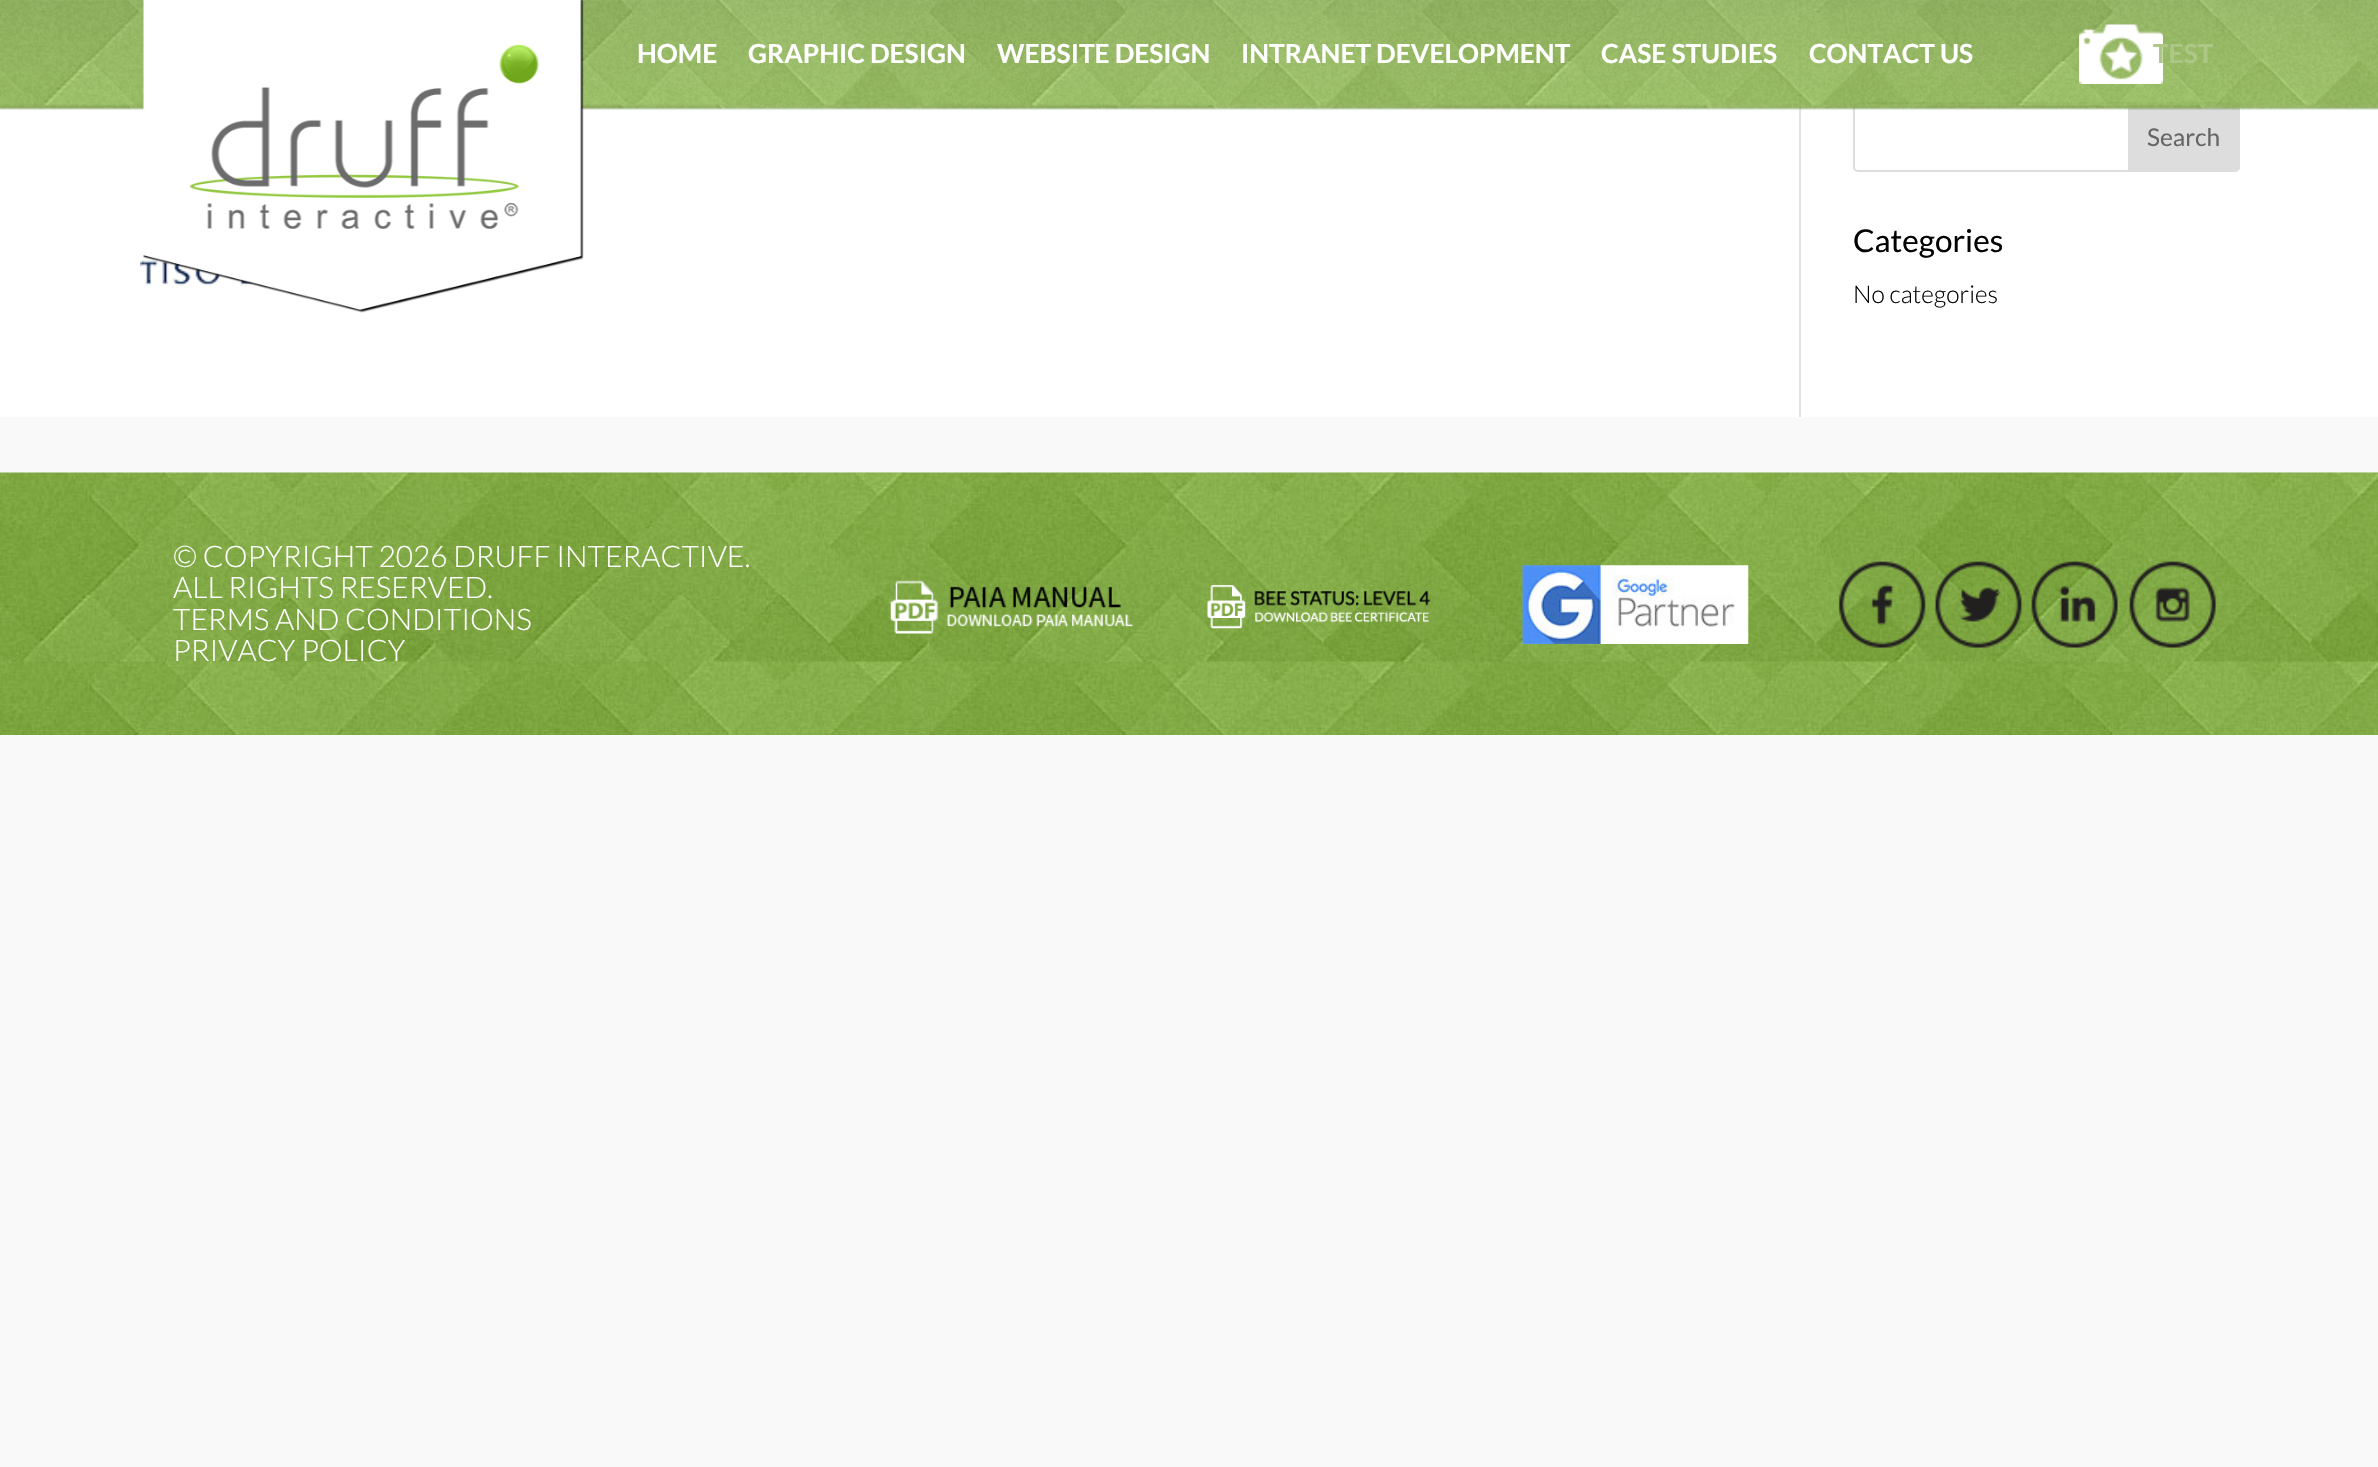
void draw(SkCanvas* canvas) {
	SkPaint fill;
	fill.setAntiAlias(true);
	auto makeFont = [&](const char* family, int weight, float size, bool italic = false) {
		SkFontStyle style(weight, SkFontStyle::kNormal_Width,
			italic ? SkFontStyle::kItalic_Slant : SkFontStyle::kUpright_Slant);
		SkFont result(fontMgr->matchFamilyStyle(family, style), size);
		result.setSubpixel(true);
		return result;
	};
	auto text = [&](const char* s, float x, float y, const SkFont& font) {
		canvas->drawString(s, x, y, font, fill);
	};
	auto box = [&](float l, float t, float r, float b) {
		canvas->drawRect(SkRect::MakeLTRB(l, t, r, b), fill);
	};
	auto picture = [&](const char* path, float l, float t, float r, float b) {
		auto image = SkImages::DeferredFromEncodedData(SkData::MakeFromFileName(path));
		canvas->drawImageRect(image, SkRect::MakeLTRB(l, t, r, b), SkSamplingOptions());
	};
	canvas->clear(0xFFF9F9F9);
	fill.setColor(0xFFFFFFFF);
	box(0, 0, 2378, 417);
	fill.setColor(0xFFE2E2E2);
	box(1799, 0, 1801, 417);
	fill.setStyle(SkPaint::kStroke_Style);
	fill.setStrokeWidth(2);
	fill.setColor(0xFFDDDDDD);
	canvas->drawRoundRect(SkRect::MakeLTRB(1854, 103, 2239, 171), 4, 4, fill);
	fill.setStyle(SkPaint::kFill_Style);
	canvas->drawPath(SkPathBuilder().moveTo(2129, 103).lineTo(2235, 103).cubicTo(2237, 103, 2239, 105, 2239, 107).lineTo(2239, 167).cubicTo(2239, 169, 2237, 171, 2235, 171).lineTo(2129, 171).close().detach(), fill);
	fill.setStyle(SkPaint::kStroke_Style);
	canvas->drawPath(SkPathBuilder().moveTo(2129, 103).lineTo(2235, 103).cubicTo(2237, 103, 2239, 105, 2239, 107).lineTo(2239, 167).cubicTo(2239, 169, 2237, 171, 2235, 171).lineTo(2129, 171).close().detach(), fill);
	fill.setStyle(SkPaint::kFill_Style);
	fill.setColor(0x1A000000);
	box(0, 108, 2378, 110);
	picture("image0.png", 0, 0, 2378, 109);
	picture("image3.png", 140, 260, 255, 286);
	picture("image1.png", 143, 0, 584, 313);
	picture("image2.png", 2079, 24, 2163, 84);
	picture("image4.png", 0, 472, 2378, 735);
	picture("image5.png", 890, 580, 1134, 634);
	picture("image6.png", 1207, 585, 1431, 629);
	picture("image7.png", 1522, 565, 1749, 644);
	picture("image8.png", 1838, 561, 1926, 648);
	picture("image9.png", 1935, 561, 2022, 648);
	picture("image10.png", 2031, 561, 2118, 648);
	picture("image11.png", 2129, 561, 2216, 648);
	auto font1 = makeFont("Lato", 700, 26.25f);
	fill.setColor(0xFFFFFFFF);
	text("HOME", 637, 63, font1);
	text("GRAPHIC DESIGN", 748, 63, font1);
	text("WEBSITE DESIGN", 997, 63, font1);
	text("INTRANET DEVELOPMENT", 1241, 63, font1);
	text("CASE STUDIES", 1601, 63, font1);
	text("CONTACT US", 1809, 63, font1);
	fill.setColor(0xFFADC886);
	text("TEST", 2153, 63, font1);
	auto font2 = makeFont("Lato", 400, 24.5f);
	fill.setColor(0xFF666666);
	text("Search", 2147, 146, font2);
	auto font3 = makeFont("Lato", 400, 31.5f);
	fill.setColor(0xFF020202);
	text("Categories", 1853, 252, font3);
	auto font4 = makeFont("Lato", 300, 24.5f);
	text("No categories", 1853, 303, font4);
	auto font5 = makeFont("Lato", 300, 29.75f);
	fill.setColor(0xFFFFFFFF);
	text("© COPYRIGHT 2026 DRUFF INTERACTIVE.", 173, 567, font5);
	text("ALL RIGHTS RESERVED.", 173, 598, font5);
	text("TERMS AND CONDITIONS", 173, 630, font5);
	text("PRIVACY POLICY", 173, 661, font5);
}
